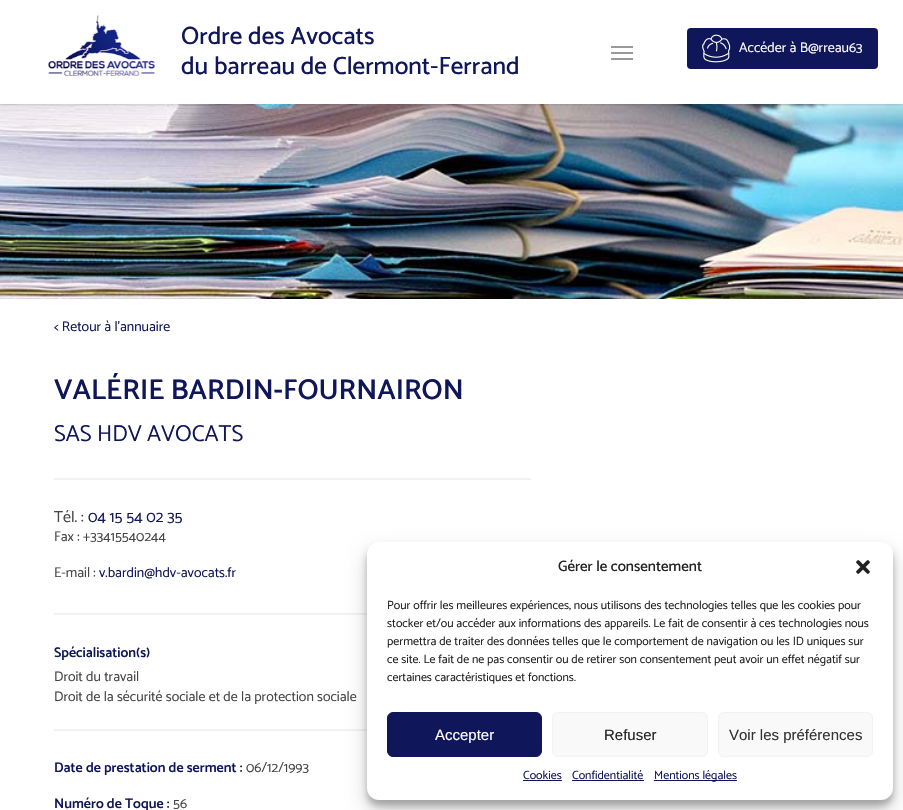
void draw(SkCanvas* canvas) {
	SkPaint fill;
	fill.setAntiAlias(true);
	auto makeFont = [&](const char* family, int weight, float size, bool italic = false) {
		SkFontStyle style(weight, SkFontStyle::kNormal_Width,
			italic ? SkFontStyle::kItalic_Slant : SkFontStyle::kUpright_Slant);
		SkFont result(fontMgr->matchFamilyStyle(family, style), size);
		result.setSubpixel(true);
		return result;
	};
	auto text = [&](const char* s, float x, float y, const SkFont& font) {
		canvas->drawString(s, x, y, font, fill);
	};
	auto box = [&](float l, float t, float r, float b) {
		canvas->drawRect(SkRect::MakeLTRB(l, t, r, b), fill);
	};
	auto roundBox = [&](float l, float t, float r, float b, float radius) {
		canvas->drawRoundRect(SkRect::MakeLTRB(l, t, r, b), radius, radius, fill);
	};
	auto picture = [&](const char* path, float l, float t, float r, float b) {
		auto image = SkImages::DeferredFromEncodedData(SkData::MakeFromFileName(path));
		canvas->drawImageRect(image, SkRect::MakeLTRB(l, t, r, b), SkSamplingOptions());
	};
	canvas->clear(0xFFFFFFFF);
	picture("image2.png", 0, 104, 903, 299);
	canvas->save();
	canvas->clipRect(SkRect::MakeLTRB(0, 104, 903, 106));
	fill.setColor(0x38000000);
	fill.setMaskFilter(SkMaskFilter::MakeBlur(kNormal_SkBlurStyle, 1.5f));
	canvas->drawRect(SkRect::MakeLTRB(0, 0, 903, 104), fill);
	fill.setMaskFilter(nullptr);
	canvas->restore();
	picture("image0.png", 48, 15, 156, 76);
	fill.setColor(0xFF999999);
	box(611, 46, 633, 48);
	box(611, 58, 633, 60);
	box(611, 52, 633, 54);
	fill.setColor(0xFF10165A);
	roundBox(687, 28, 878, 69, 4);
	picture("image1.png", 702, 34, 731, 63);
	fill.setColor(0xFFF2F2F2);
	box(54, 478, 531, 480);
	box(54, 613, 367, 615);
	box(54, 729, 367, 731);
	fill.setColor(0x3B000000);
	fill.setMaskFilter(SkMaskFilter::MakeBlur(kNormal_SkBlurStyle, 3));
	canvas->drawRoundRect(SkRect::MakeLTRB(367, 548, 893, 806), 12, 12, fill);
	fill.setMaskFilter(nullptr);
	fill.setColor(0x30000000);
	fill.setMaskFilter(SkMaskFilter::MakeBlur(kNormal_SkBlurStyle, 10));
	canvas->drawRoundRect(SkRect::MakeLTRB(367, 552, 893, 810), 12, 12, fill);
	fill.setMaskFilter(nullptr);
	fill.setColor(0xFFFFFFFF);
	roundBox(367, 542, 893, 800, 12);
	picture("image3.png", 856, 560, 870, 574);
	fill.setColor(0xFF10165A);
	canvas->drawRoundRect(SkRect::MakeLTRB(387.5f, 712.5f, 541.5f, 756.5f), 5.5f, 5.5f, fill);
	fill.setStyle(SkPaint::kStroke_Style);
	fill.setStrokeWidth(1);
	canvas->drawRoundRect(SkRect::MakeLTRB(387.5f, 712.5f, 541.5f, 756.5f), 5.5f, 5.5f, fill);
	fill.setStyle(SkPaint::kFill_Style);
	fill.setColor(0xFFF9F9F9);
	canvas->drawRoundRect(SkRect::MakeLTRB(552.5f, 712.5f, 707.5f, 756.5f), 5.5f, 5.5f, fill);
	fill.setStyle(SkPaint::kStroke_Style);
	fill.setColor(0xFFF2F2F2);
	canvas->drawRoundRect(SkRect::MakeLTRB(552.5f, 712.5f, 707.5f, 756.5f), 5.5f, 5.5f, fill);
	fill.setStyle(SkPaint::kFill_Style);
	fill.setColor(0xFFF9F9F9);
	canvas->drawRoundRect(SkRect::MakeLTRB(718.5f, 712.5f, 872.5f, 756.5f), 5.5f, 5.5f, fill);
	fill.setStyle(SkPaint::kStroke_Style);
	fill.setColor(0xFFF2F2F2);
	canvas->drawRoundRect(SkRect::MakeLTRB(718.5f, 712.5f, 872.5f, 756.5f), 5.5f, 5.5f, fill);
	fill.setStyle(SkPaint::kFill_Style);
	fill.setColor(0xFF10165A);
	box(523, 780, 562, 781);
	box(572, 780, 644, 781);
	box(654, 780, 737, 781);
	auto font1 = makeFont("Catamaran", 500, 25);
	text("Ordre des Avocats", 181, 44, font1);
	text("du barreau de Clermont-Ferrand", 181, 74, font1);
	auto font2 = makeFont("Catamaran", 400, 14);
	fill.setColor(0xFFFFFFFF);
	text("Accéder à B@rreau63", 739, 52, font2);
	fill.setColor(0xFF10165A);
	text("< Retour à l’annuaire", 54, 331, font2);
	auto font3 = makeFont("Catamaran", 600, 28.75f);
	text("VALÉRIE BARDIN-FOURNAIRON", 54, 399, font3);
	auto font4 = makeFont("Catamaran", 400, 23);
	text("SAS HDV AVOCATS", 54, 441, font4);
	auto font5 = makeFont("Catamaran", 400, 16);
	fill.setColor(0xFF444444);
	text("Tél. :", 54, 522, font5);
	fill.setColor(0xFF10165A);
	text("04 15 54 02 35", 88, 522, font5);
	fill.setColor(0xFF444444);
	text("Fax : +33415540244", 54, 541, font2);
	text("E-mail :", 54, 577, font2);
	fill.setColor(0xFF10165A);
	text("v.bardin@hdv-avocats.fr", 99, 577, font2);
	auto font6 = makeFont("Catamaran", 600, 14);
	text("Spécialisation(s)", 54, 657, font6);
	fill.setColor(0xFF444444);
	text("Droit du travail", 54, 681, font2);
	text("Droit de la sécurité sociale et de la protection sociale", 54, 701, font2);
	fill.setColor(0xFF10165A);
	text("Date de prestation de serment :", 54, 772, font6);
	fill.setColor(0xFF444444);
	text("06/12/1993", 246, 772, font2);
	fill.setColor(0xFF10165A);
	text("Numéro de Toque :", 54, 808, font6);
	fill.setColor(0xFF444444);
	text("56", 173, 808, font2);
	auto font7 = makeFont("Catamaran", 500, 15);
	fill.setColor(0xFF222222);
	text("Gérer le consentement", 558, 571, font7);
	auto font8 = makeFont("Catamaran", 400, 12);
	text("Pour offrir les meilleures expériences, nous utilisons des technologies telles que les cookies pour", 387, 609, font8);
	text("stocker et/ou accéder aux informations des appareils. Le fait de consentir à ces technologies nous", 387, 627, font8);
	text("permettra de traiter des données telles que le comportement de navigation ou les ID uniques sur", 387, 645, font8);
	text("ce site. Le fait de ne pas consentir ou de retirer son consentement peut avoir un effet négatif sur", 387, 663, font8);
	text("certaines caractéristiques et fonctions.", 387, 681, font8);
	auto font9 = makeFont("Liberation Sans", 400, 15);
	fill.setColor(0xFFFFFFFF);
	text("Accepter", 435, 740, font9);
	fill.setColor(0xFF222222);
	text("Refuser", 604, 740, font9);
	fill.setColor(0xFF333333);
	text("Voir les préférences", 729, 740, font9);
	fill.setColor(0xFF10165A);
	text("Cookies", 523, 779, font8);
	text("Confidentialité", 572, 779, font8);
	text("Mentions légales", 654, 779, font8);
}
